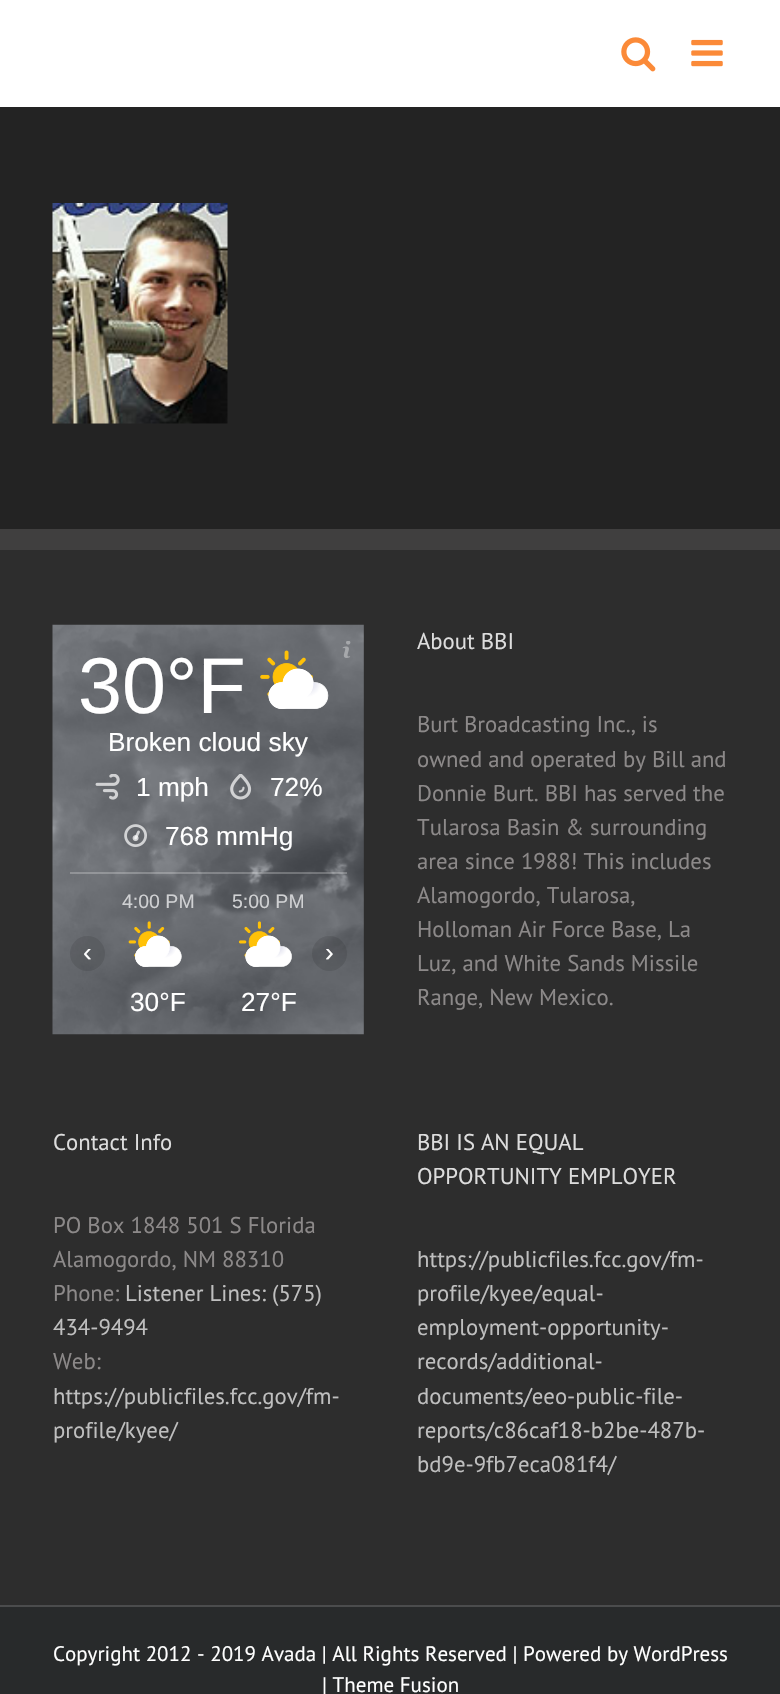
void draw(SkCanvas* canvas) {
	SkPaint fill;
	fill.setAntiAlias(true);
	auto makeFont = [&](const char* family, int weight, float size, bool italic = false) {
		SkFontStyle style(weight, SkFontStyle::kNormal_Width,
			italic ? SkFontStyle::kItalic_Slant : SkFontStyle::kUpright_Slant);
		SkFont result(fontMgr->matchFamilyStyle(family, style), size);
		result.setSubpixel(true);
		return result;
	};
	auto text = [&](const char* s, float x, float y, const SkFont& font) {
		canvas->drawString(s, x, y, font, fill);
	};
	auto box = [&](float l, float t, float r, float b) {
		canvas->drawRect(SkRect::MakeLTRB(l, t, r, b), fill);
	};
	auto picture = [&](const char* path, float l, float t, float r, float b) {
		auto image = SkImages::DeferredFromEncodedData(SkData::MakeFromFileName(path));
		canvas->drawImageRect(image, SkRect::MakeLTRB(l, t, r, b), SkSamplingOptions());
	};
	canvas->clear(0xFF232323);
	fill.setColor(0xFFFFFFFF);
	box(0, 0, 780, 107);
	picture("image0.png", 621, 37, 656, 72);
	picture("image1.png", 691, 39, 723, 67);
	picture("image2.png", 52, 203, 228, 424);
	fill.setColor(0xFF2D2D2D);
	box(0, 550, 780, 1605);
	fill.setColor(0xFF403F3F);
	box(0, 529, 780, 550);
	picture("image3.png", 52, 624, 364, 1035);
	picture("image4.png", 342, 641, 351, 658);
	picture("image5.png", 260, 650, 329, 709);
	picture("image6.png", 95, 774, 120, 800);
	picture("image7.png", 230, 774, 252, 800);
	picture("image8.png", 124, 824, 147, 847);
	fill.setColor(0x3DFFFFFF);
	box(70, 872, 347, 874);
	fill.setColor(0x1A000000);
	canvas->drawCircle(87.5f, 953.5f, 17.5f, fill);
	picture("image9.png", 128, 921, 182, 967);
	picture("image10.png", 238, 921, 292, 967);
	canvas->drawCircle(329.5f, 953.5f, 17.5f, fill);
	fill.setColor(0xFF282A2B);
	box(0, 1607, 780, 1694);
	fill.setColor(0xFF4B4C4D);
	box(0, 1605, 780, 1607);
	auto font1 = makeFont("Liberation Sans", 400, 79);
	fill.setColor(0xFFFFFFFF);
	text("30°F", 78, 713, font1);
	auto font2 = makeFont("Liberation Sans", 400, 26.25f);
	text("Broken cloud sky", 108, 751, font2);
	text("1 mph", 136, 796, font2);
	text("72%", 270, 796, font2);
	text("768 mmHg", 165, 845, font2);
	text("‹", 83, 961, font2);
	auto font3 = makeFont("Liberation Sans", 400, 19.5f);
	fill.setColor(0xFFD0D1D3);
	text("4:00 PM", 122, 908, font3);
	fill.setColor(0xFFFFFFFF);
	text("30°F", 130, 1011, font2);
	canvas->save();
	canvas->clipRect(SkRect::MakeLTRB(114, 891, 303, 1017));
	fill.setColor(0xFFD0D1D3);
	text("5:00 PM", 232, 908, font3);
	canvas->restore();
	fill.setColor(0xFFFFFFFF);
	text("27°F", 241, 1011, font2);
	text("›", 325, 961, font2);
	auto font4 = makeFont("PT Sans", 400, 22.75f);
	fill.setColor(0xFFDDDDDD);
	text("About BBI", 417, 649, font4);
	fill.setColor(0xFF8C8989);
	text("Burt Broadcasting Inc., is", 417, 732, font4);
	text("owned and operated by Bill and", 417, 767, font4);
	text("Donnie Burt. BBI has served the", 417, 801, font4);
	text("Tularosa Basin & surrounding", 417, 835, font4);
	text("area since 1988! This includes", 417, 869, font4);
	text("Alamogordo, Tularosa,", 417, 903, font4);
	text("Holloman Air Force Base, La", 417, 937, font4);
	text("Luz, and White Sands Missile", 417, 971, font4);
	text("Range, New Mexico.", 417, 1005, font4);
	fill.setColor(0xFFDDDDDD);
	text("Contact Info", 53, 1150, font4);
	fill.setColor(0xFF8C8989);
	text("PO Box 1848 501 S Florida", 53, 1233, font4);
	text("Alamogordo, NM 88310", 53, 1267, font4);
	text("Phone:", 53, 1301, font4);
	fill.setColor(0xFFBFBFBF);
	text("Listener Lines: (575)", 125, 1301, font4);
	text("434-9494", 53, 1335, font4);
	fill.setColor(0xFF8C8989);
	text("Web:", 53, 1369, font4);
	fill.setColor(0xFFBFBFBF);
	text("https://publicfiles.fcc.gov/fm-", 53, 1404, font4);
	text("profile/kyee/", 53, 1438, font4);
	fill.setColor(0xFFDDDDDD);
	text("BBI IS AN EQUAL", 417, 1150, font4);
	text("OPPORTUNITY EMPLOYER", 417, 1184, font4);
	fill.setColor(0xFFBFBFBF);
	text("https://publicfiles.fcc.gov/fm-", 417, 1267, font4);
	text("profile/kyee/equal-", 417, 1301, font4);
	text("employment-opportunity-", 417, 1335, font4);
	text("records/additional-", 417, 1369, font4);
	text("documents/eeo-public-file-", 417, 1404, font4);
	text("reports/c86caf18-b2be-487b-", 417, 1438, font4);
	text("bd9e-9fb7eca081f4/", 417, 1472, font4);
	auto font5 = makeFont("PT Sans", 400, 21);
	fill.setColor(0xFFFFFFFF);
	text("Copyright 2012 - 2019 Avada | All Rights Reserved | Powered by WordPress", 53, 1661, font5);
	text("| Theme Fusion", 322, 1692, font5);
}
